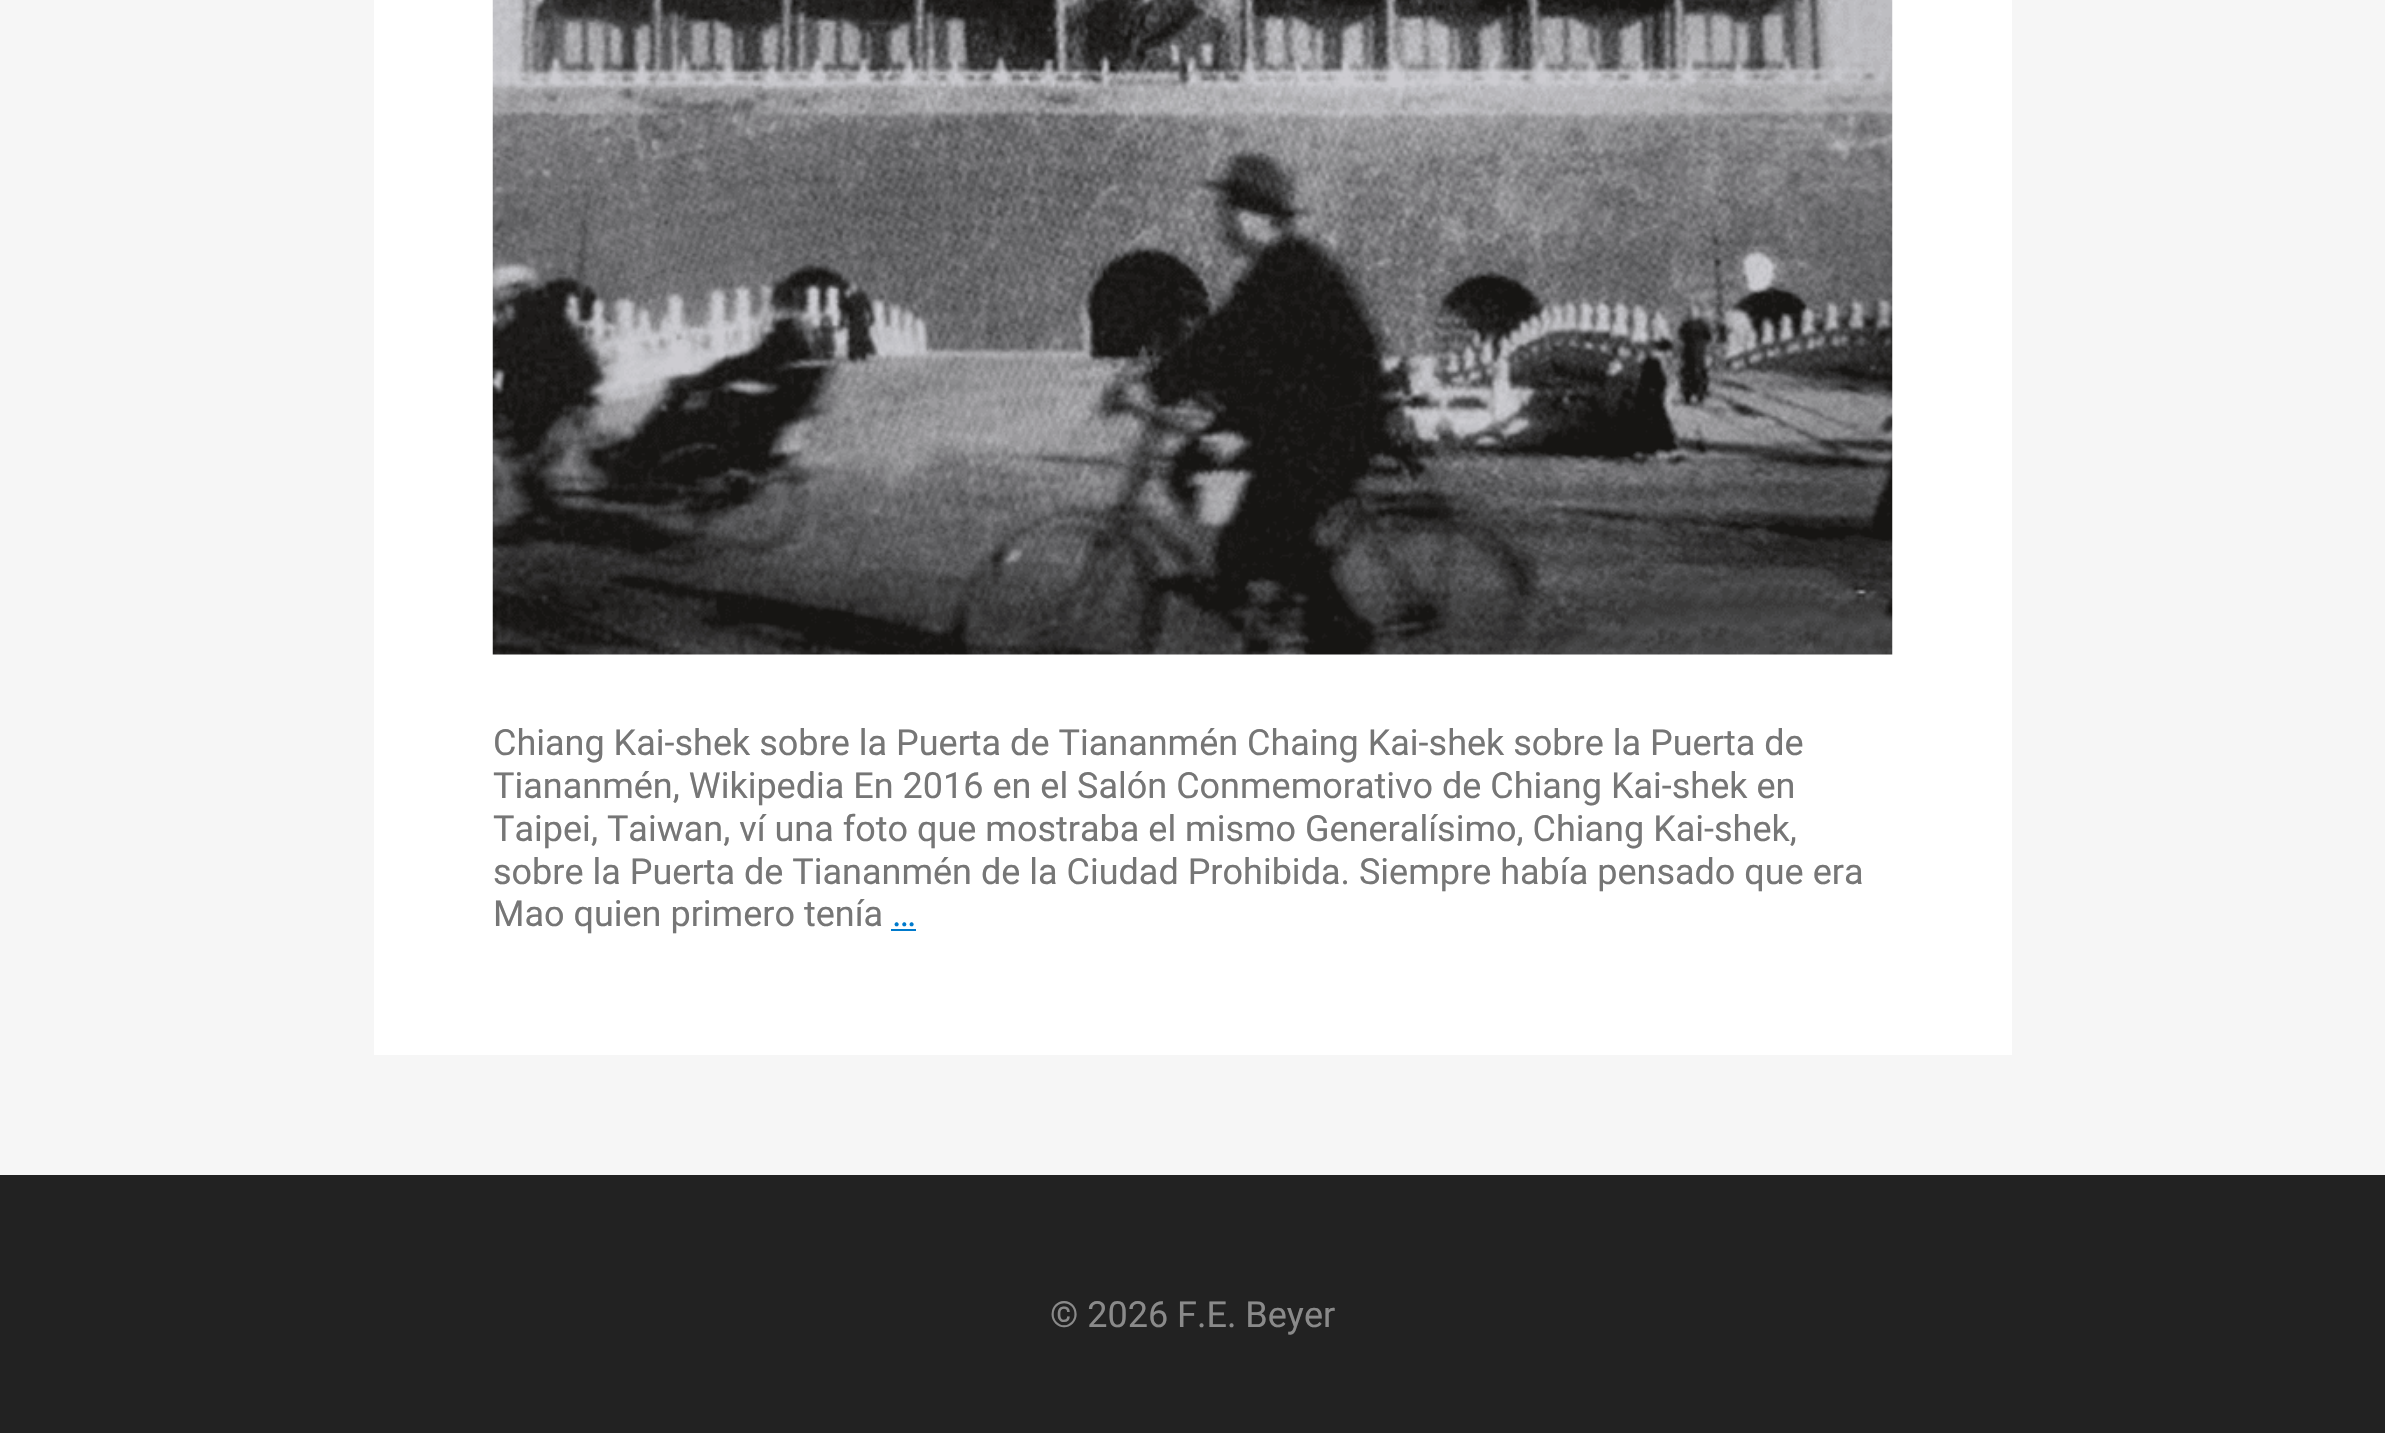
void draw(SkCanvas* canvas) {
	SkPaint fill;
	fill.setAntiAlias(true);
	auto makeFont = [&](const char* family, int weight, float size, bool italic = false) {
		SkFontStyle style(weight, SkFontStyle::kNormal_Width,
			italic ? SkFontStyle::kItalic_Slant : SkFontStyle::kUpright_Slant);
		SkFont result(fontMgr->matchFamilyStyle(family, style), size);
		result.setSubpixel(true);
		return result;
	};
	auto text = [&](const char* s, float x, float y, const SkFont& font) {
		canvas->drawString(s, x, y, font, fill);
	};
	auto box = [&](float l, float t, float r, float b) {
		canvas->drawRect(SkRect::MakeLTRB(l, t, r, b), fill);
	};
	auto picture = [&](const char* path, float l, float t, float r, float b) {
		auto image = SkImages::DeferredFromEncodedData(SkData::MakeFromFileName(path));
		canvas->drawImageRect(image, SkRect::MakeLTRB(l, t, r, b), SkSamplingOptions());
	};
	canvas->clear(0xFFF6F6F6);
	fill.setColor(0xFFFFFFFF);
	box(374, 0, 2012, 1055);
	picture("image0.png", 492, 0, 1893, 655);
	fill.setColor(0xFF007ACC);
	box(891, 929, 916, 931);
	fill.setColor(0xFF222222);
	box(0, 1175, 2385, 1433);
	auto font1 = makeFont("Roboto", 400, 36);
	fill.setColor(0xFF767676);
	text("Chiang Kai-shek sobre la Puerta de Tiananmén Chaing Kai-shek sobre la Puerta de", 493, 755, font1);
	text("Tiananmén, Wikipedia En 2016 en el Salón Conmemorativo de Chiang Kai-shek en", 493, 798, font1);
	text("Taipei, Taiwan, ví una foto que mostraba el mismo Generalísimo, Chiang Kai-shek,", 493, 841, font1);
	text("sobre la Puerta de Tiananmén de la Ciudad Prohibida. Siempre había pensado que era", 493, 884, font1);
	text("Mao quien primero tenía", 493, 926, font1);
	fill.setColor(0xFF007ACC);
	text("…", 892, 926, font1);
	fill.setColor(0xFF8A8A8A);
	text("© 2026 F.E. Beyer", 1050, 1327, font1);
}
